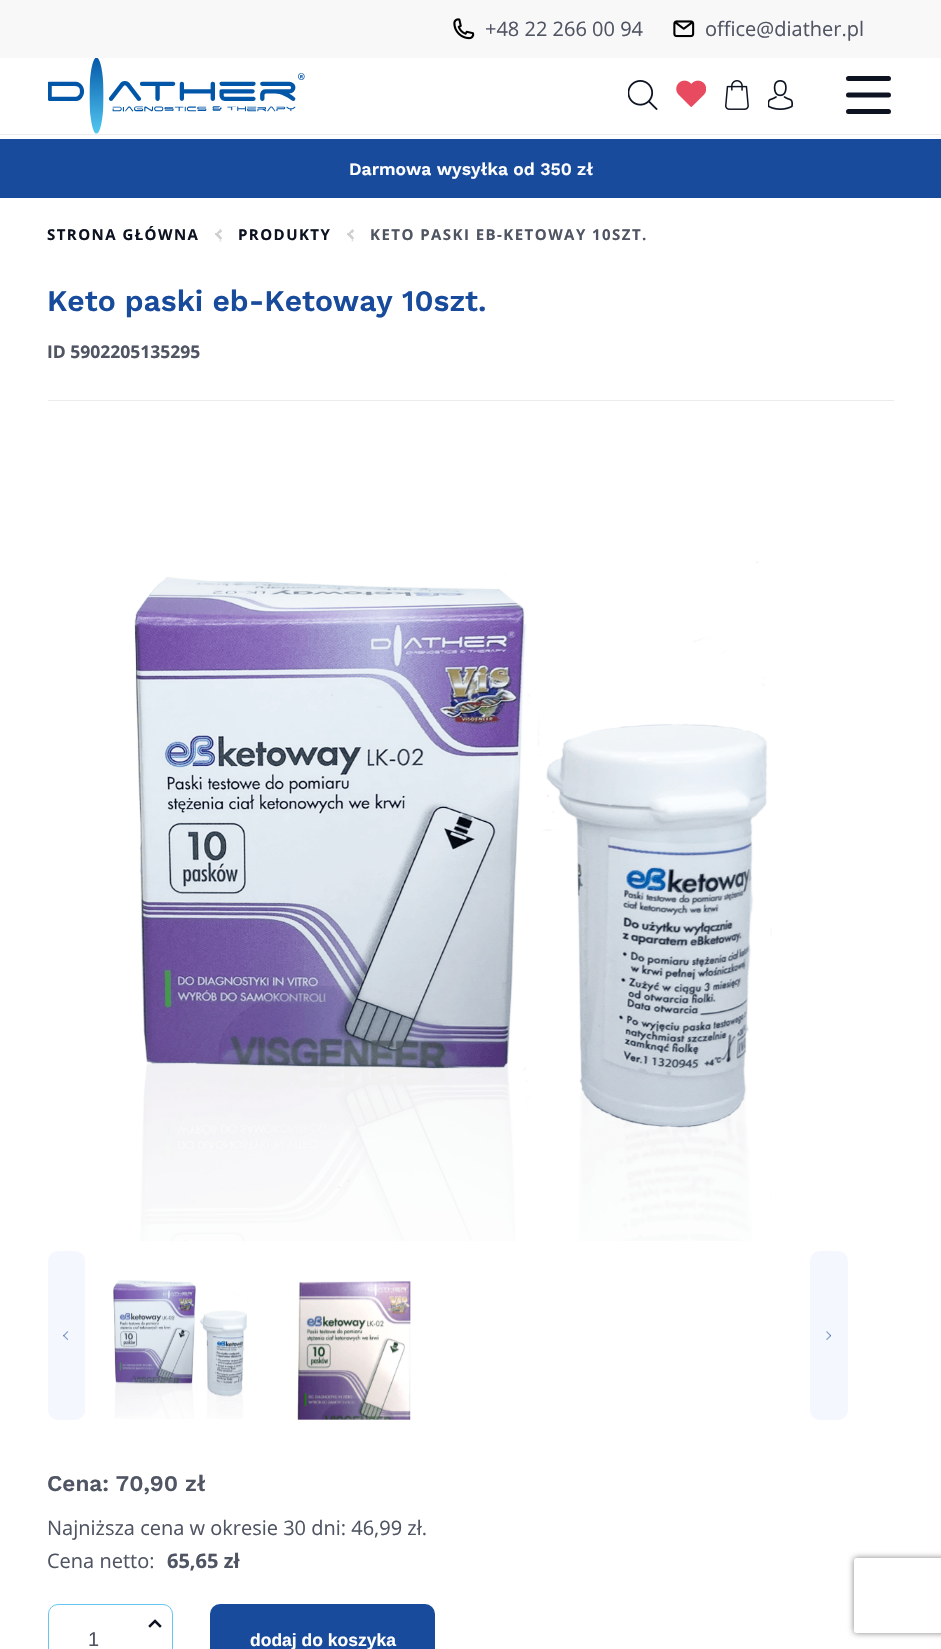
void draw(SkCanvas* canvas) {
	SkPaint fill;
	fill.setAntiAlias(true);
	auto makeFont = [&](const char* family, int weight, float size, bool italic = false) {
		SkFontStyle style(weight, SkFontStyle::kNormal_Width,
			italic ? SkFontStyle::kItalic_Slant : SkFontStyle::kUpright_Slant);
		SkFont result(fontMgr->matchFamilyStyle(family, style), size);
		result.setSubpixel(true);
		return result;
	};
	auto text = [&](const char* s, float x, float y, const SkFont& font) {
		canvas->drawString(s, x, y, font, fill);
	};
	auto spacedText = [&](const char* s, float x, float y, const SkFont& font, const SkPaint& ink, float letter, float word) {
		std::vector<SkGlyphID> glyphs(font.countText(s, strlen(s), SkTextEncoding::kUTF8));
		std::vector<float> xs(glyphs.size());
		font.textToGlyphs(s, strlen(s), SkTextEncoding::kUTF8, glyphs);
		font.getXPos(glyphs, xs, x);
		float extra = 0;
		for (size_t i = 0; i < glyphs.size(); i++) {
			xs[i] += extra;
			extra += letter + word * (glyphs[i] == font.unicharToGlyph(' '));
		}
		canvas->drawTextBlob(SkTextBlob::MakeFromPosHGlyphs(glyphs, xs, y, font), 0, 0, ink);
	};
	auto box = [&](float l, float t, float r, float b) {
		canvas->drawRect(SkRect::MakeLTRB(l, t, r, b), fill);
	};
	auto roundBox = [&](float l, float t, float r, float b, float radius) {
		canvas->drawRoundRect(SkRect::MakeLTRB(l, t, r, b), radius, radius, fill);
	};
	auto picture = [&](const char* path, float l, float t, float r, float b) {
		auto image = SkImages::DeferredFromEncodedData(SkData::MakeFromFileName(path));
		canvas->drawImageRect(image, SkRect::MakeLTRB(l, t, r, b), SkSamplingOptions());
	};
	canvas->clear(0xFFFFFFFF);
	fill.setColor(0xFFECECEC);
	box(0, 134, 941, 135);
	fill.setColor(0xFFF8F8F8);
	box(0, 0, 941, 58);
	picture("image0.png", 453, 18, 475, 40);
	picture("image1.png", 673, 20, 695, 38);
	picture("image2.png", 48, 58, 305, 134);
	picture("image3.png", 628, 80, 658, 110);
	picture("image4.png", 676, 80, 706, 107);
	picture("image5.png", 725, 80, 749, 110);
	picture("image6.png", 768, 80, 793, 110);
	fill.setStyle(SkPaint::kStroke_Style);
	fill.setStrokeWidth(5);
	fill.setStrokeCap(SkPaint::kRound_Cap);
	fill.setStrokeJoin(SkPaint::kRound_Join);
	fill.setColor(0xFF0D1321);
	canvas->drawPath(SkPathBuilder().moveTo(848.5f, 78.5f).lineTo(888.5f, 78.5f).moveTo(848.5f, 95).lineTo(888.5f, 95).moveTo(848.5f, 111.5f).lineTo(888.5f, 111.5f).detach(), fill);
	fill.setStyle(SkPaint::kFill_Style);
	fill.setColor(0xFF184B9B);
	box(0, 139, 941, 198);
	picture("image7.png", 215, 228, 222, 242);
	picture("image7.png", 347, 228, 354, 242);
	fill.setColor(0xFFECECEC);
	box(48, 400, 894, 401);
	picture("image8.png", 134, 561, 772, 1241);
	fill.setColor(0xFFF4F7FE);
	roundBox(48, 1251, 85, 1420, 10);
	picture("image9.png", 63, 1331, 69, 1340);
	picture("image10.png", 113, 1280, 247, 1419);
	picture("image11.png", 297, 1281, 411, 1420);
	roundBox(810, 1251, 848, 1420, 10);
	picture("image12.png", 826, 1331, 831, 1340);
	fill.setStyle(SkPaint::kStroke_Style);
	fill.setStrokeWidth(1);
	fill.setStrokeCap(SkPaint::kButt_Cap);
	fill.setStrokeJoin(SkPaint::kMiter_Join);
	fill.setColor(0xFF65C6F0);
	canvas->drawRoundRect(SkRect::MakeLTRB(48.5f, 1604.5f, 172.5f, 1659.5f), 9.5f, 9.5f, fill);
	fill.setStrokeWidth(2.5f);
	fill.setStrokeCap(SkPaint::kSquare_Cap);
	fill.setColor(0xFF0D1321);
	canvas->drawPath(SkPathBuilder().moveTo(160, 1626).lineTo(155, 1621).moveTo(150, 1626).lineTo(155, 1621).detach(), fill);
	fill.setStyle(SkPaint::kFill_Style);
	fill.setColor(0xFF184B9B);
	roundBox(210, 1604, 435, 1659, 10);
	canvas->save();
	canvas->clipPath(SkPathBuilder(SkPathFillType::kEvenOdd).moveTo(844, 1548).lineTo(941, 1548).lineTo(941, 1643).lineTo(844, 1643).close().moveTo(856.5f, 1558).lineTo(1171.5f, 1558).cubicTo(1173, 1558, 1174, 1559, 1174, 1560.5f).lineTo(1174, 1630.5f).cubicTo(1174, 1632, 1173, 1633, 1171.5f, 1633).lineTo(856.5f, 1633).cubicTo(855, 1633, 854, 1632, 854, 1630.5f).lineTo(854, 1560.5f).cubicTo(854, 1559, 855, 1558, 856.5f, 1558).close().detach(), true);
	fill.setColor(0xFF808080);
	fill.setMaskFilter(SkMaskFilter::MakeBlur(kNormal_SkBlurStyle, 3));
	canvas->drawRoundRect(SkRect::MakeLTRB(854, 1558, 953, 1633), 2.5f, 2.5f, fill);
	fill.setMaskFilter(nullptr);
	canvas->restore();
	auto font1 = makeFont("Open Sans", 400, 20);
	fill.setColor(0xFF505563);
	text("+48 22 266 00 94", 485, 36, font1);
	text("office@diather.pl", 705, 36, font1);
	auto font2 = makeFont("Work Sans", 600, 17.5f);
	fill.setColor(0xFFFFFFFF);
	text("Darmowa wysyłka od 350 zł", 349, 175, font2);
	auto font3 = makeFont("Open Sans", 700, 15);
	fill.setColor(0xFF0D1321);
	spacedText("STRONA GŁÓWNA", 47, 240, font3, fill, 1.45f, 0);
	spacedText("PRODUKTY", 238, 240, font3, fill, 1.45f, 0);
	fill.setColor(0xFF505563);
	spacedText("KETO PASKI EB-KETOWAY 10SZT.", 370, 240, font3, fill, 1.45f, 0);
	auto font4 = makeFont("Work Sans", 600, 30);
	fill.setColor(0xFF184B9B);
	text("Keto paski eb-Ketoway 10szt.", 47, 311, font4);
	auto font5 = makeFont("Open Sans", 700, 17.5f);
	fill.setColor(0xFF505563);
	text("ID 5902205135295", 47, 358, font5);
	auto font6 = makeFont("Work Sans", 600, 22.5f);
	text("Cena: 70,90 zł", 47, 1491, font6);
	text("Najniższa cena w okresie 30 dni: 46,99 zł.", 47, 1535, font1);
	text("Cena netto:", 47, 1568, font1);
	auto font7 = makeFont("Open Sans", 700, 20);
	text("65,65 zł", 167, 1568, font7);
	auto font8 = makeFont("Liberation Sans", 400, 20);
	text("1", 88, 1646, font8);
	auto font9 = makeFont("Liberation Sans", 700, 17.5f);
	fill.setColor(0xFFFFFFFF);
	text("dodaj do koszyka", 250, 1646, font9);
}
